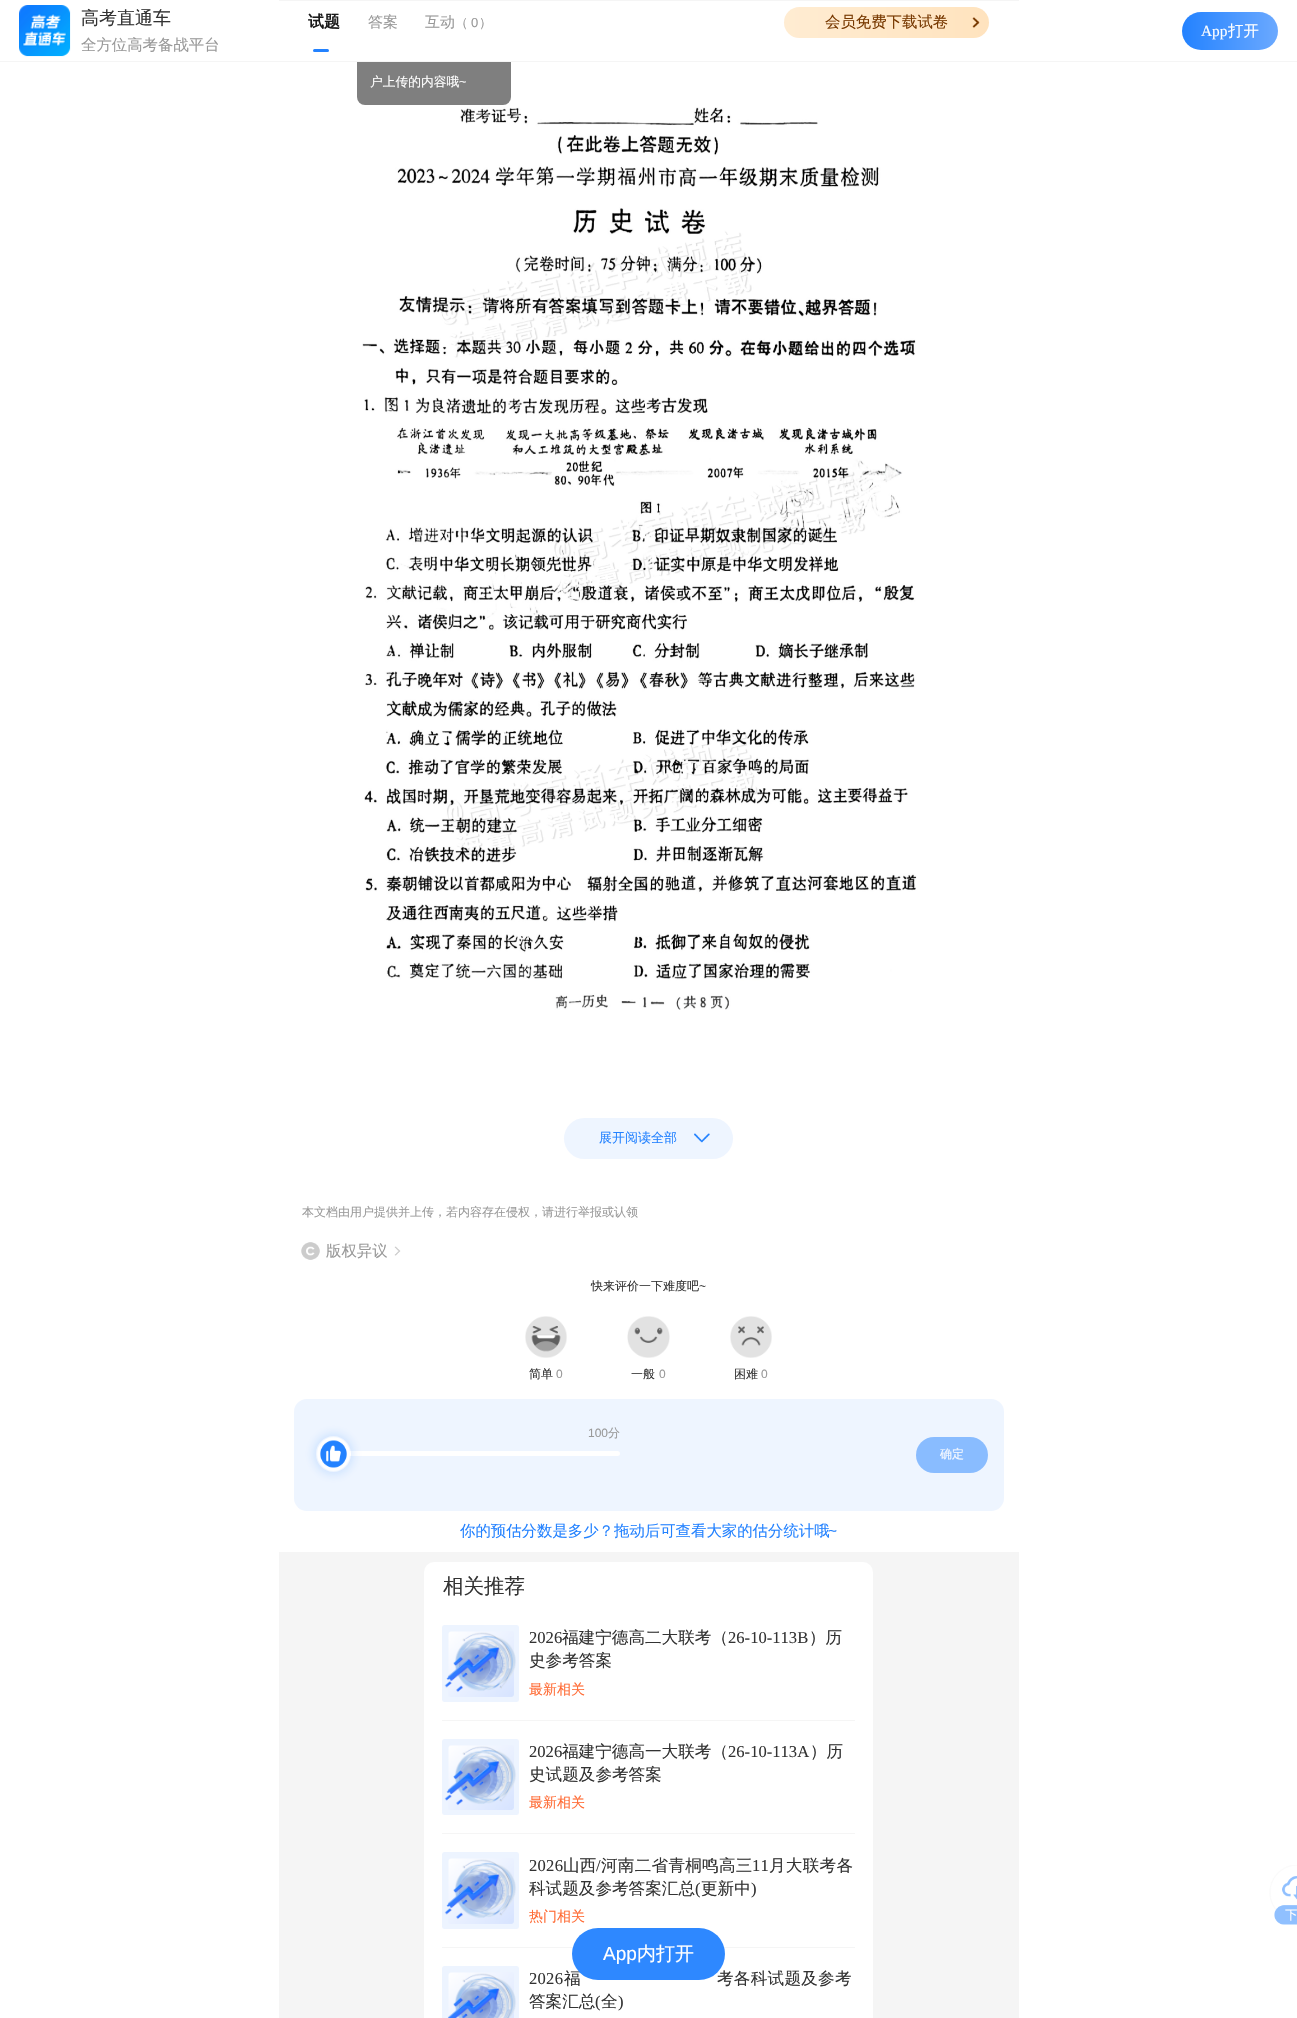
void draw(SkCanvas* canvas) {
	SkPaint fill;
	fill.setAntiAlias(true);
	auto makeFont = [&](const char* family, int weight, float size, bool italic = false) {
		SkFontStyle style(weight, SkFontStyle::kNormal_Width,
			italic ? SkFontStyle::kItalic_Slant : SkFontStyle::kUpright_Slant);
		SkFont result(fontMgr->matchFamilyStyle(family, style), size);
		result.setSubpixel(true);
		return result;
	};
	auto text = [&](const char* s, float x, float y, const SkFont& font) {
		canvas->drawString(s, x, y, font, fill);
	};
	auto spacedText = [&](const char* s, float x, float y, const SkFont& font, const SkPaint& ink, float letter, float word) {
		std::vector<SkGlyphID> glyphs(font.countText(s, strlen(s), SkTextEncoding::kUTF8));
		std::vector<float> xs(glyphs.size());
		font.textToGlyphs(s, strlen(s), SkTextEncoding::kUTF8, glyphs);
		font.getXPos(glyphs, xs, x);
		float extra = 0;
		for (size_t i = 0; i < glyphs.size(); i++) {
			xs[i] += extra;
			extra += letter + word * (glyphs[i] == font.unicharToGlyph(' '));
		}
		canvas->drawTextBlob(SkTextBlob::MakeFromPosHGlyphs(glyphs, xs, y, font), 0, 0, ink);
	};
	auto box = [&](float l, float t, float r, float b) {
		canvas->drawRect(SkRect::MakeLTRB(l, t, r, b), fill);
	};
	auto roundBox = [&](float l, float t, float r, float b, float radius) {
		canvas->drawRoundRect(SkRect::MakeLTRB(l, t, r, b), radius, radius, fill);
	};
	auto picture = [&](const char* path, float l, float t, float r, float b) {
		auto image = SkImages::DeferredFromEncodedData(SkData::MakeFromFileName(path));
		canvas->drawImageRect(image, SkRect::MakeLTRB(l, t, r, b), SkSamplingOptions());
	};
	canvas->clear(0xFFFFFFFF);
	fill.setColor(0x80000000);
	roundBox(357, 39, 511, 105, 8);
	fill.setColor(0xFFFFFFFF);
	box(357, 39, 511, 61);
	fill.setColor(0xFFF5F5F5);
	box(0, 61, 1297, 62);
	picture("image0.png", 19, 5, 71, 57);
	{
		const SkColor colors[] = {0xFF6BA9FF, 0xFF2382FF};
		const float stops[] = {0, 1};
		const SkPoint ends[] = {{1278, 31}, {1182, 31}};
		fill.setShader(SkGradientShader::MakeLinear(ends, colors, stops, 2, SkTileMode::kClamp));
		fill.setAlpha(255);
	}
	roundBox(1182, 12, 1278, 50, 19);
	fill.setShader(nullptr);
	fill.setColor(0xFFF5F5F5);
	box(279, 0, 1019, 1);
	{
		const SkColor colors[] = {0xFFFFECD2, 0xFFFFE3BE};
		const float stops[] = {0, 1};
		const SkPoint ends[] = {{784, 23}, {989, 22}};
		fill.setShader(SkGradientShader::MakeLinear(ends, colors, stops, 2, SkTileMode::kClamp));
		fill.setAlpha(255);
	}
	roundBox(784, 7, 989, 38, 15.5f);
	picture("image1.png", 972, 17, 980, 28);
	fill.setShader(nullptr);
	fill.setColor(0xFF2382FF);
	roundBox(313, 49, 329, 52, 1.5f);
	picture("image2.png", 362, 107, 917, 1010);
	{
		const SkColor colors[] = {0x00FFFFFF, 0xFFFFFFFF};
		const float stops[] = {0, 0.76f};
		const SkPoint ends[] = {{649, 972}, {649, 1159}};
		fill.setShader(SkGradientShader::MakeLinear(ends, colors, stops, 2, SkTileMode::kClamp));
		fill.setAlpha(255);
	}
	roundBox(279, 972, 1019, 1159, 5);
	fill.setShader(nullptr);
	fill.setColor(0xFFEEF5FF);
	roundBox(564, 1118, 733, 1159, 20.5f);
	picture("image3.png", 694, 1133, 710, 1143);
	picture("image4.png", 301, 1242, 320, 1260);
	picture("image5.png", 394, 1246, 401, 1256);
	picture("image6.png", 525, 1316, 567, 1358);
	picture("image7.png", 627, 1316, 670, 1358);
	picture("image8.png", 730, 1316, 772, 1358);
	roundBox(294, 1399, 1004, 1511, 13);
	fill.setColor(0xFFFFFFFF);
	roundBox(326, 1451, 620, 1456, 2.5f);
	canvas->save();
	canvas->clipPath(SkPathBuilder(SkPathFillType::kEvenOdd).moveTo(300, 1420).lineTo(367, 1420).lineTo(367, 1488).lineTo(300, 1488).close().moveTo(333.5f, 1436).cubicTo(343, 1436, 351, 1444, 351, 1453.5f).lineTo(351, 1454.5f).cubicTo(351, 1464, 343, 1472, 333.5f, 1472).cubicTo(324, 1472, 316, 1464, 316, 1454.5f).lineTo(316, 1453.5f).cubicTo(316, 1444, 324, 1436, 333.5f, 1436).close().detach(), true);
	fill.setColor(0x262382FF);
	fill.setMaskFilter(SkMaskFilter::MakeBlur(kNormal_SkBlurStyle, 4));
	canvas->drawRoundRect(SkRect::MakeLTRB(313, 1433, 354, 1475), 20.5f, 20.5f, fill);
	fill.setMaskFilter(nullptr);
	canvas->restore();
	picture("image9.png", 317, 1437, 350, 1471);
	fill.setColor(0xFF89BCFF);
	roundBox(916, 1437, 988, 1473, 18);
	fill.setColor(0xFFF5F5F5);
	box(279, 1552, 1019, 2018);
	fill.setColor(0xFFFFFFFF);
	roundBox(424, 1562, 873, 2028, 10);
	fill.setColor(0xFFF5F5F5);
	box(442, 1720, 855, 1721);
	picture("image10.png", 442, 1625, 519, 1702);
	box(442, 1833, 855, 1834);
	picture("image11.png", 442, 1739, 519, 1815);
	box(442, 1947, 855, 1948);
	picture("image10.png", 442, 1852, 519, 1929);
	picture("image12.png", 442, 1966, 519, 2018);
	picture("image13.png", 1269, 1865, 1297, 1925);
	auto font1 = makeFont("WenQuanYi Zen Hei", 500, 18);
	fill.setColor(0xFF333333);
	text("高考直通车", 81, 24, font1);
	auto font2 = makeFont("WenQuanYi Zen Hei", 500, 15.4f);
	fill.setColor(0xFF999999);
	text("全方位高考备战平台", 81, 50, font2);
	auto font3 = makeFont("Liberation Serif", 400, 15.4f);
	fill.setColor(0xFFFFFFFF);
	text("App", 1201, 36, font3);
	text("打开", 1228, 36, font2);
	auto font4 = makeFont("WenQuanYi Zen Hei", 700, 16);
	fill.setColor(0xFF1A1A1A);
	text("试题", 308, 27, font4);
	auto font5 = makeFont("WenQuanYi Zen Hei", 500, 15);
	fill.setColor(0xFF999999);
	text("答案", 368, 27, font5);
	text("互动", 425, 27, font5);
	auto font6 = makeFont("WenQuanYi Zen Hei", 500, 13);
	text("（", 455, 27, font6);
	auto font7 = makeFont("Liberation Sans", 400, 13);
	text("0", 471, 27, font7);
	text("）", 479, 27, font6);
	fill.setColor(0xFF773800);
	text("会员免费下载试卷", 825, 27, font2);
	auto font8 = makeFont("WenQuanYi Zen Hei", 500, 12.75f);
	fill.setColor(0xFFFFFFFF);
	text("户上传的内容哦", 370, 86, font8);
	auto font9 = makeFont("Liberation Sans", 400, 12.75f);
	text("~", 459, 86, font9);
	fill.setColor(0xFF2382FF);
	text("展开阅读全部", 599, 1142, font6);
	auto font10 = makeFont("WenQuanYi Zen Hei", 500, 12);
	fill.setColor(0xFF999999);
	text("本文档由用户提供并上传，若内容存在侵权，请进行举报或认领", 302, 1216, font10);
	text("版权异议", 326, 1256, font2);
	fill.setColor(0xFF333333);
	text("快来评价一下难度吧", 591, 1290, font10);
	auto font11 = makeFont("Liberation Sans", 400, 12);
	text("~", 699, 1290, font11);
	text("简单", 529, 1378, font10);
	fill.setColor(0xFF999999);
	text("0", 556, 1378, font11);
	fill.setColor(0xFF333333);
	text("一般", 631, 1378, font10);
	fill.setColor(0xFF999999);
	text("0", 659, 1378, font11);
	fill.setColor(0xFF333333);
	text("困难", 734, 1378, font10);
	fill.setColor(0xFF999999);
	text("0", 761, 1378, font11);
	text("100", 588, 1437, font11);
	text("分", 608, 1437, font10);
	fill.setColor(0xFFF7FAFF);
	text("确定", 940, 1458, font10);
	fill.setColor(0xFF2382FF);
	text("你的预估分数是多少？拖动后可查看大家的估分统计哦", 460, 1536, font2);
	auto font12 = makeFont("Liberation Sans", 400, 15.4f);
	text("~", 828, 1536, font12);
	auto font13 = makeFont("WenQuanYi Zen Hei", 500, 20.5f);
	fill.setColor(0xFF333333);
	text("相关推荐", 443, 1593, font13);
	auto font14 = makeFont("Liberation Serif", 400, 16.6f);
	text("2026", 529, 1643, font14);
	auto font15 = makeFont("WenQuanYi Zen Hei", 500, 16.6f);
	text("福建宁德高二大联考（", 562, 1643, font15);
	text("26-10-113B", 728, 1643, font14);
	text("）历", 809, 1643, font15);
	text("史参考答案", 529, 1666, font15);
	auto font16 = makeFont("WenQuanYi Zen Hei", 500, 14);
	fill.setColor(0xFFFF6A33);
	text("最新相关", 529, 1694, font16);
	fill.setColor(0xFF333333);
	text("2026", 529, 1757, font14);
	text("福建宁德高一大联考（", 562, 1757, font15);
	text("26-10-113A", 728, 1757, font14);
	text("）历", 810, 1757, font15);
	text("史试题及参考答案", 529, 1780, font15);
	fill.setColor(0xFFFF6A33);
	text("最新相关", 529, 1807, font16);
	fill.setColor(0xFF333333);
	spacedText("2026", 529, 1871, font14, fill, 0.25f, 0);
	spacedText("山西", 563, 1871, font15, fill, 0.25f, 0);
	spacedText("/", 596, 1871, font14, fill, 0.25f, 0);
	spacedText("河南二省青桐鸣高三", 601, 1871, font15, fill, 0.25f, 0);
	spacedText("11", 752, 1871, font14, fill, 0.25f, 0);
	spacedText("月大联考各", 769, 1871, font15, fill, 0.25f, 0);
	text("科试题及参考答案汇总", 529, 1894, font15);
	text("(", 695, 1894, font14);
	text("更新中", 701, 1894, font15);
	text(")", 751, 1894, font14);
	fill.setColor(0xFFFF6A33);
	text("热门相关", 529, 1921, font16);
	fill.setColor(0xFF333333);
	spacedText("2026", 529, 1984, font14, fill, 0.25f, 0);
	spacedText("福", 564, 1984, font15, fill, 0.25f, 0);
	spacedText("考各科试题及参考", 717, 1984, font15, fill, 0.25f, 0);
	text("答案汇总", 529, 2007, font15);
	text("(", 595, 2007, font14);
	text("全", 601, 2007, font15);
	text(")", 618, 2007, font14);
	fill.setColor(0xF22382FF);
	roundBox(572, 1928, 725, 1980, 26);
	auto font17 = makeFont("Liberation Sans", 400, 19);
	fill.setColor(0xFFFFFFFF);
	text("App", 603, 1960, font17);
	auto font18 = makeFont("WenQuanYi Zen Hei", 500, 19);
	text("内打开", 637, 1960, font18);
}
